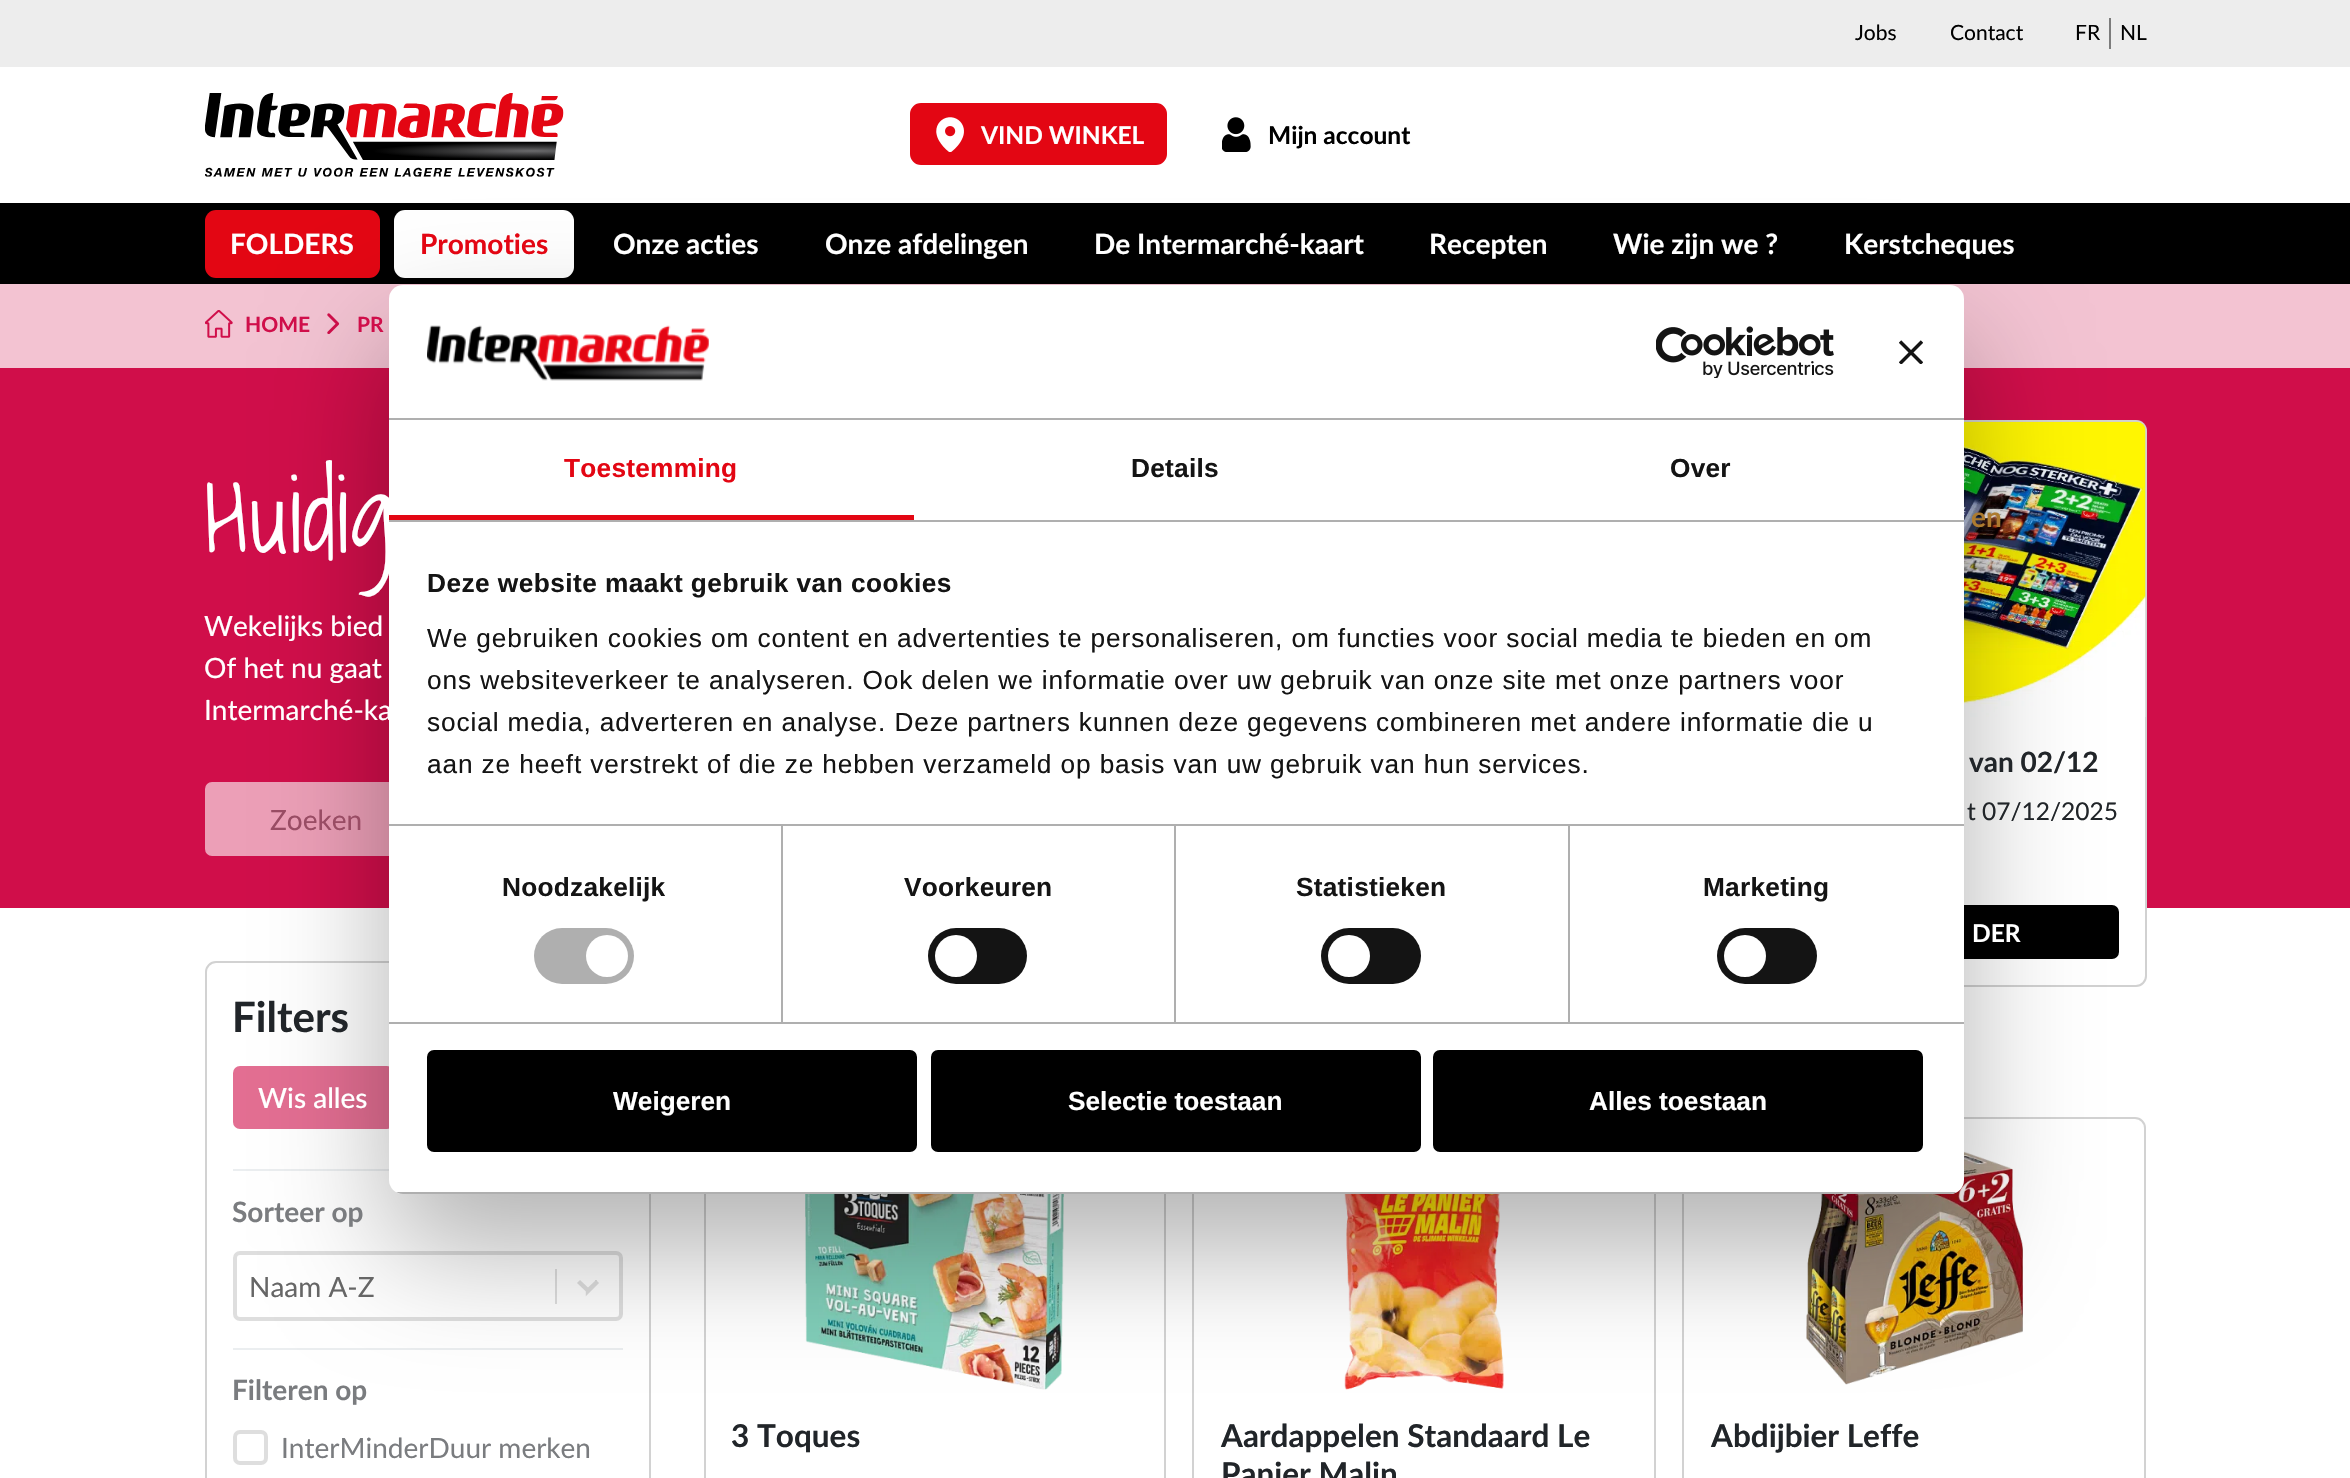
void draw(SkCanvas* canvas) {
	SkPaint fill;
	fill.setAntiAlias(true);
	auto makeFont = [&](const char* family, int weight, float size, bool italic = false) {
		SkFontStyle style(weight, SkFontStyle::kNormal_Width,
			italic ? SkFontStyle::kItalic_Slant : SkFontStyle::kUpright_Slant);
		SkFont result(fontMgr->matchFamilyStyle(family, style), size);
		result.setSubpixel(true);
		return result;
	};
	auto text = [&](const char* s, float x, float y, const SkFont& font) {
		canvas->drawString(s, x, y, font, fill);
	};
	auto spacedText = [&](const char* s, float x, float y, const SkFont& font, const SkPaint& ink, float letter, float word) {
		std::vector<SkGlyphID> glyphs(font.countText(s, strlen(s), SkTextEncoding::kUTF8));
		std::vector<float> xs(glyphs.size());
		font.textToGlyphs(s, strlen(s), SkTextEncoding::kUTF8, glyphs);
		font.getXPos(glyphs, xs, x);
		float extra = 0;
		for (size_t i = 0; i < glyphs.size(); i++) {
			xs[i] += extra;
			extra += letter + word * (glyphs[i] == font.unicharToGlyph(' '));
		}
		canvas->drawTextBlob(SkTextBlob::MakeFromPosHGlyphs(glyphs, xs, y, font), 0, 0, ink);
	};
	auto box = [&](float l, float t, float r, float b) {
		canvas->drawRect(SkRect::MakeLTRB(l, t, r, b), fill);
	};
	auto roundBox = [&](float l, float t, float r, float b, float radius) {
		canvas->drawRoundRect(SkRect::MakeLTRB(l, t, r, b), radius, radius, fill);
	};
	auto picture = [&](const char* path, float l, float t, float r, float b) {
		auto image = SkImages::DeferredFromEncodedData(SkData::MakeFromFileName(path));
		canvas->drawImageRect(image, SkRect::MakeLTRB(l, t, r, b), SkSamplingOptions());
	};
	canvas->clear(0xFFFFFFFF);
	fill.setColor(0xFFEDEDED);
	box(0, 0, 2350, 67);
	fill.setColor(0xFF7C7C7C);
	box(2109, 18, 2111, 49);
	picture("image0.png", 205, 93, 564, 177);
	fill.setColor(0xFFE30613);
	canvas->drawRoundRect(SkRect::MakeLTRB(911, 104, 1166, 164), 10, 10, fill);
	fill.setStyle(SkPaint::kStroke_Style);
	fill.setStrokeWidth(2);
	canvas->drawRoundRect(SkRect::MakeLTRB(911, 104, 1166, 164), 10, 10, fill);
	picture("image1.png", 936, 117, 964, 152);
	picture("image2.png", 1222, 117, 1251, 152);
	fill.setStyle(SkPaint::kFill_Style);
	fill.setColor(0xFF000000);
	box(0, 203, 2350, 284);
	fill.setColor(0xFFE30613);
	roundBox(205, 210, 380, 278, 11);
	fill.setColor(0xFFFFFFFF);
	roundBox(394, 210, 574, 278, 11);
	fill.setColor(0xFFF3C3D2);
	box(0, 284, 2350, 368);
	picture("image3.png", 205, 310, 233, 338);
	picture("image4.png", 327, 313, 340, 334);
	fill.setColor(0xFFD00E4A);
	box(0, 368, 2350, 908);
	fill.setColor(0xFFEC9FB7);
	canvas->drawRoundRect(SkRect::MakeLTRB(207, 784, 1022, 854), 5, 5, fill);
	fill.setStyle(SkPaint::kStroke_Style);
	fill.setStrokeWidth(4);
	canvas->drawRoundRect(SkRect::MakeLTRB(207, 784, 1022, 854), 5, 5, fill);
	fill.setStyle(SkPaint::kFill_Style);
	fill.setColor(0xFFFFFFFF);
	roundBox(1701, 420, 2147, 987, 11);
	fill.setStyle(SkPaint::kStroke_Style);
	fill.setStrokeWidth(2);
	fill.setColor(0x2E000000);
	canvas->drawRoundRect(SkRect::MakeLTRB(1702, 421, 2146, 986), 10, 10, fill);
	picture("image5.png", 1964, 421, 2146, 717);
	fill.setStyle(SkPaint::kFill_Style);
	fill.setColor(0xFF000000);
	canvas->drawRoundRect(SkRect::MakeLTRB(1730, 906, 2118, 958), 6, 6, fill);
	fill.setStyle(SkPaint::kStroke_Style);
	canvas->drawRoundRect(SkRect::MakeLTRB(1730, 906, 2118, 958), 6, 6, fill);
	fill.setColor(0xFFD2D2D2);
	canvas->drawRoundRect(SkRect::MakeLTRB(206, 962, 650, 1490), 10, 10, fill);
	fill.setStyle(SkPaint::kFill_Style);
	fill.setColor(0xFFE36E92);
	roundBox(233, 1066, 394, 1129, 7);
	fill.setColor(0xFFEBEEF0);
	box(233, 1169, 389, 1171);
	fill.setStyle(SkPaint::kStroke_Style);
	fill.setStrokeWidth(4);
	fill.setColor(0xFFDEDEDE);
	canvas->drawRoundRect(SkRect::MakeLTRB(235, 1253, 621, 1319), 5, 5, fill);
	fill.setStyle(SkPaint::kFill_Style);
	box(555, 1269, 557, 1304);
	fill.setStyle(SkPaint::kStroke_Style);
	fill.setStrokeWidth(4.4f);
	canvas->drawPath(SkPathBuilder().moveTo(588, 1290.5f).lineTo(578.5f, 1281.5f).lineTo(588, 1290.5f).lineTo(597.5f, 1281.5f).lineTo(588, 1291).close().detach(), fill);
	fill.setStyle(SkPaint::kFill_Style);
	fill.setColor(0xFFEBEEF0);
	box(233, 1348, 623, 1350);
	fill.setStyle(SkPaint::kStroke_Style);
	fill.setStrokeWidth(4);
	fill.setColor(0xFFDEDEDE);
	canvas->drawRoundRect(SkRect::MakeLTRB(235, 1432, 266, 1463), 5, 5, fill);
	fill.setStrokeWidth(2);
	fill.setColor(0xFFD2D2D2);
	canvas->drawRect(SkRect::MakeLTRB(705, 1118, 1165, 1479), fill);
	picture("image6.png", 805, 1194, 1064, 1390);
	canvas->drawRect(SkRect::MakeLTRB(1193, 1118, 1655, 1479), fill);
	picture("image7.png", 1344, 1194, 1504, 1390);
	canvas->drawRoundRect(SkRect::MakeLTRB(1683, 1118, 2145, 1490), 10, 10, fill);
	picture("image8.png", 1806, 1151, 2023, 1385);
	fill.setStyle(SkPaint::kFill_Style);
	fill.setColor(0x4D000000);
	fill.setMaskFilter(SkMaskFilter::MakeBlur(kNormal_SkBlurStyle, 59.5f));
	canvas->drawRoundRect(SkRect::MakeLTRB(389, 341, 1964, 1250), 14, 14, fill);
	fill.setMaskFilter(nullptr);
	fill.setColor(0xFFFFFFFF);
	roundBox(389, 285, 1964, 1194, 14);
	fill.setColor(0xFFAFAFAF);
	box(389, 418, 1964, 420);
	picture("image9.png", 427, 325, 709, 381);
	picture("image10.png", 1656, 326, 1834, 378);
	picture("image11.png", 1899, 340, 1923, 364);
	box(389, 824, 1964, 826);
	box(389, 1022, 1964, 1024);
	box(781, 826, 783, 1022);
	roundBox(534, 928, 634, 984, 28);
	fill.setColor(0xFFFFFFFF);
	canvas->drawCircle(607, 956, 21, fill);
	fill.setColor(0xFFAFAFAF);
	box(1174, 826, 1176, 1022);
	fill.setColor(0xFF141414);
	roundBox(928, 928, 1027, 984, 28);
	fill.setColor(0xFFFFFFFF);
	canvas->drawCircle(956, 956, 21, fill);
	fill.setColor(0xFFAFAFAF);
	box(1568, 826, 1570, 1022);
	fill.setColor(0xFF141414);
	roundBox(1321, 928, 1421, 984, 28);
	fill.setColor(0xFFFFFFFF);
	canvas->drawCircle(1349, 956, 21, fill);
	fill.setColor(0xFF141414);
	roundBox(1717, 928, 1817, 984, 28);
	fill.setColor(0xFFFFFFFF);
	canvas->drawCircle(1745, 956, 21, fill);
	canvas->save();
	canvas->clipPath(SkPathBuilder().moveTo(403, 285).lineTo(1950, 285).cubicTo(1957.5f, 285, 1964, 291.5f, 1964, 299).lineTo(1964, 1180).cubicTo(1964, 1187.5f, 1957.5f, 1194, 1950, 1194).lineTo(403, 1194).cubicTo(395.5f, 1194, 389, 1187.5f, 389, 1180).lineTo(389, 299).cubicTo(389, 291.5f, 395.5f, 285, 403, 285).close().detach(), true);
	fill.setColor(0xFFAFAFAF);
	box(389, 1192, 1964, 1194);
	canvas->restore();
	fill.setColor(0xFF000000);
	canvas->drawRoundRect(SkRect::MakeLTRB(429, 1052, 915, 1150), 5, 5, fill);
	fill.setStyle(SkPaint::kStroke_Style);
	fill.setStrokeWidth(4);
	canvas->drawRoundRect(SkRect::MakeLTRB(429, 1052, 915, 1150), 5, 5, fill);
	fill.setStyle(SkPaint::kFill_Style);
	canvas->drawRoundRect(SkRect::MakeLTRB(933, 1052, 1419, 1150), 5, 5, fill);
	fill.setStyle(SkPaint::kStroke_Style);
	canvas->drawRoundRect(SkRect::MakeLTRB(933, 1052, 1419, 1150), 5, 5, fill);
	fill.setStyle(SkPaint::kFill_Style);
	canvas->drawRoundRect(SkRect::MakeLTRB(1435, 1052, 1921, 1150), 5, 5, fill);
	fill.setStyle(SkPaint::kStroke_Style);
	canvas->drawRoundRect(SkRect::MakeLTRB(1435, 1052, 1921, 1150), 5, 5, fill);
	auto font1 = makeFont("Lato", 400, 21);
	fill.setStyle(SkPaint::kFill_Style);
	text("Jobs", 1855, 40, font1);
	text("Contact", 1950, 40, font1);
	text("FR", 2075, 40, font1);
	text("NL", 2120, 40, font1);
	auto font2 = makeFont("Lato", 700, 24.5f);
	fill.setColor(0xFFFFFFFF);
	text("VIND WINKEL", 981, 144, font2);
	fill.setColor(0xFF000000);
	text("Mijn account", 1268, 144, font2);
	auto font3 = makeFont("Lato", 700, 28);
	fill.setColor(0xFFFFFFFF);
	text("FOLDERS", 230, 254, font3);
	fill.setColor(0xFFE30613);
	text("Promoties", 420, 254, font3);
	fill.setColor(0xFFFFFFFF);
	text("Onze acties", 613, 254, font3);
	text("Onze afdelingen", 825, 254, font3);
	text("De Intermarché-kaart", 1094, 254, font3);
	text("Recepten", 1429, 254, font3);
	text("Wie zijn we ?", 1613, 254, font3);
	fill.setColor(0xFFAD7B2F);
	text("en", 1971, 527, font3);
	fill.setColor(0xFFFFFFFF);
	text("Kerstcheques", 1844, 254, font3);
	auto font4 = makeFont("Lato", 700, 21);
	fill.setColor(0xFFD00E4A);
	text("HOME", 245, 332, font4);
	text("PR", 357, 332, font4);
	auto font5 = makeFont("Shadows Into Light", 300, 105);
	fill.setColor(0xFFFFFFFF);
	text("Huidig", 204, 552, font5);
	auto font6 = makeFont("Lato", 400, 28);
	text("Wekelijks bied", 204, 636, font6);
	text("Of het nu gaat", 204, 678, font6);
	text("Intermarché-ka", 204, 720, font6);
	fill.setColor(0xFF994C64);
	text("Zoeken", 270, 830, font6);
	fill.setColor(0xFF212529);
	text("van 02/12", 1969, 772, font3);
	auto font7 = makeFont("Lato", 400, 24.5f);
	text("t 07/12/2025", 1967, 820, font7);
	fill.setColor(0xFFFFFFFF);
	text("DER", 1972, 942, font2);
	auto font8 = makeFont("Lato", 700, 42);
	fill.setColor(0xFF212529);
	text("Filters", 232, 1032, font8);
	auto font9 = makeFont("Lato", 500, 28);
	fill.setColor(0xFFFFFFFF);
	text("Wis alles", 258, 1108, font9);
	fill.setColor(0xFF7A7C7F);
	text("Sorteer op", 232, 1222, font3);
	fill.setColor(0xFF666666);
	text("Naam A-Z", 249, 1297, font6);
	fill.setColor(0xFF7A7C7F);
	text("Filteren op", 232, 1400, font3);
	text("InterMinderDuur merken", 281, 1458, font6);
	auto font10 = makeFont("Lato", 700, 31.5f);
	fill.setColor(0xFF212529);
	text("3 Toques", 731, 1447, font10);
	text("Aardappelen Standaard Le", 1221, 1447, font10);
	text("Panier Malin", 1221, 1485, font10);
	text("Abdijbier Leffe", 1711, 1447, font10);
	fill.setColor(0xFFAFAFAF);
	box(389, 520, 1964, 522);
	fill.setColor(0xFFE30613);
	box(389, 515, 914, 520);
	auto font11 = makeFont("Liberation Sans", 700, 26.25f);
	spacedText("Toestemming", 564, 477, font11, fill, 0.25f, 0);
	fill.setColor(0xFF141414);
	spacedText("Details", 1131, 477, font11, fill, 0.25f, 0);
	spacedText("Over", 1670, 477, font11, fill, 0.25f, 0);
	spacedText("Deze website maakt gebruik van cookies", 427, 592, font11, fill, 0.45f, 0);
	auto font12 = makeFont("Liberation Sans", 400, 26.25f);
	spacedText("We gebruiken cookies om content en advertenties te personaliseren, om functies voor social media te bieden en om", 427, 647, font12, fill, 0.88f, 0);
	spacedText("ons websiteverkeer te analyseren. Ook delen we informatie over uw gebruik van onze site met onze partners voor", 427, 689, font12, fill, 0.88f, 0);
	spacedText("social media, adverteren en analyse. Deze partners kunnen deze gegevens combineren met andere informatie die u", 427, 731, font12, fill, 0.88f, 0);
	spacedText("aan ze heeft verstrekt of die ze hebben verzameld op basis van uw gebruik van hun services.", 427, 773, font12, fill, 0.88f, 0);
	spacedText("Noodzakelijk", 502, 896, font11, fill, 0.25f, 0);
	spacedText("Voorkeuren", 904, 896, font11, fill, 0.25f, 0);
	spacedText("Statistieken", 1296, 896, font11, fill, 0.25f, 0);
	spacedText("Marketing", 1703, 896, font11, fill, 0.25f, 0);
	fill.setColor(0xFFFFFFFF);
	text("Weigeren", 613, 1110, font11);
	text("Selectie toestaan", 1068, 1110, font11);
	text("Alles toestaan", 1589, 1110, font11);
}
